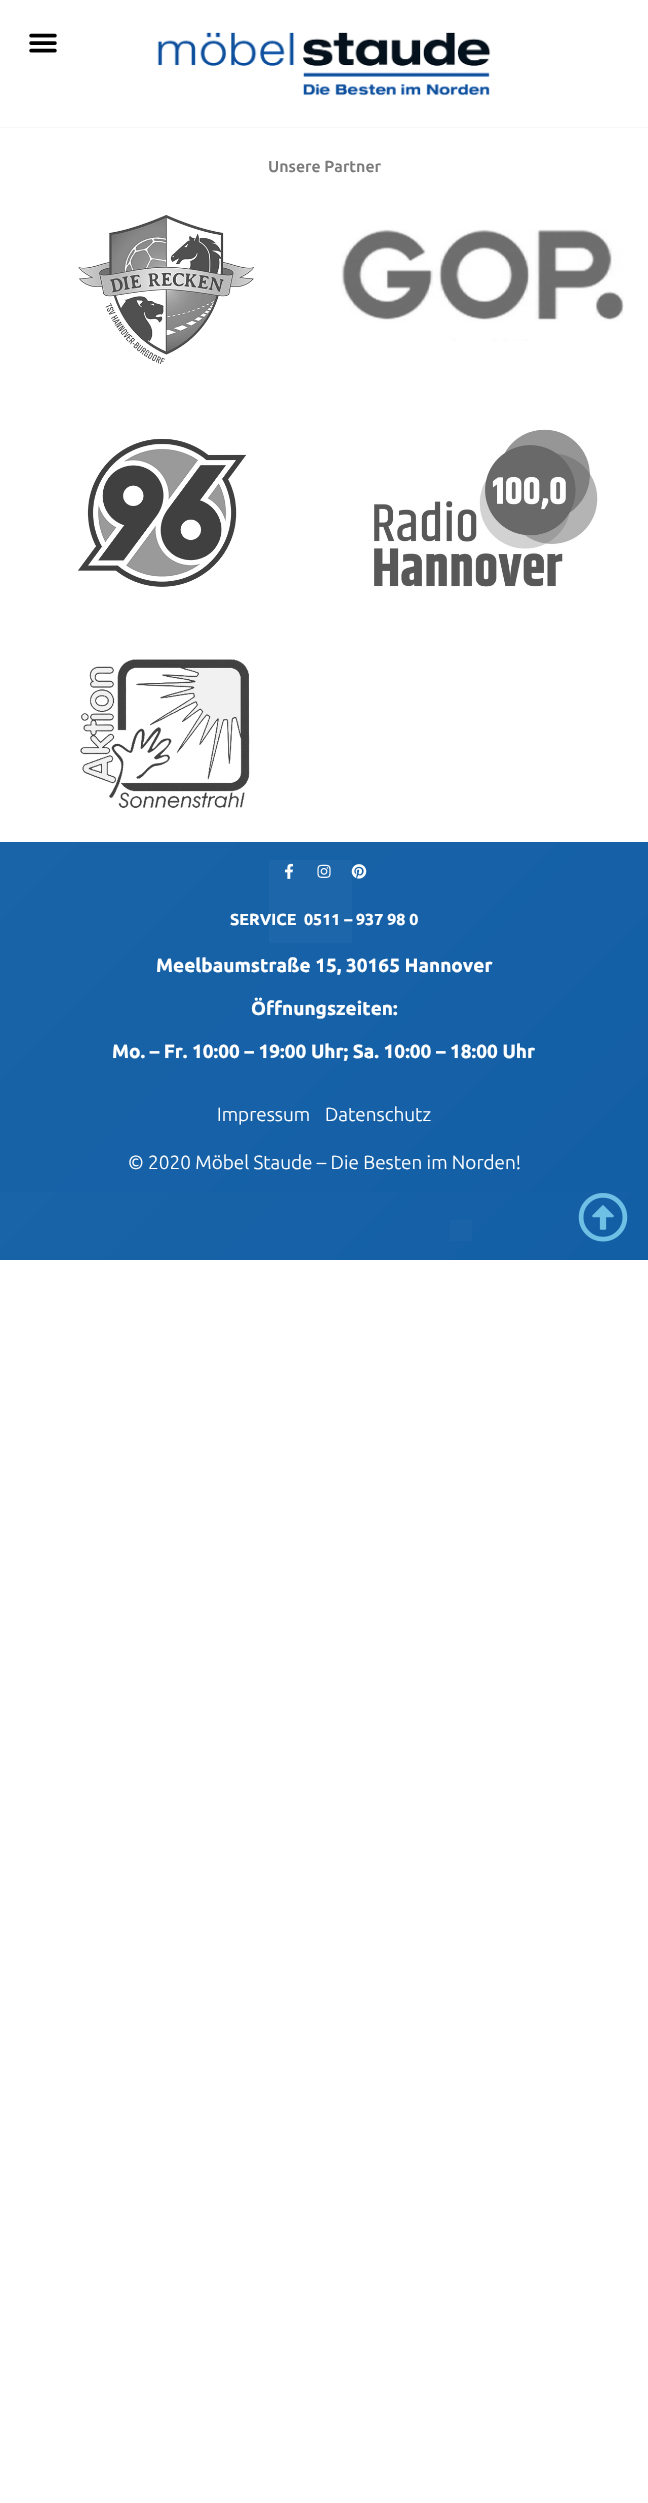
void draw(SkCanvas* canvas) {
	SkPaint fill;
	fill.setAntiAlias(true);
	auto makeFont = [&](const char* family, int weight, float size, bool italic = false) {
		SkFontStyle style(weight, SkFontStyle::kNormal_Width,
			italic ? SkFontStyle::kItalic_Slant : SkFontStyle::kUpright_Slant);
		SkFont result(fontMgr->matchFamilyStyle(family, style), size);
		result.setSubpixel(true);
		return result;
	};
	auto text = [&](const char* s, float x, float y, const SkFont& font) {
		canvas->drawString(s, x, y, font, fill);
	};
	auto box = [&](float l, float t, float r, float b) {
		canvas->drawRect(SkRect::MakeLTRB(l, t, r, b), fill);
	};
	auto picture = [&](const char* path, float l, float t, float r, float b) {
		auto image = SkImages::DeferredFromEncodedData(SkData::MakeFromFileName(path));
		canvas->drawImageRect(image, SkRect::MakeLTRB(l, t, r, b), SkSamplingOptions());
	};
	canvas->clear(0xFFFFFFFF);
	fill.setColor(0xFFF7F7F7);
	box(0, 127, 648, 128);
	picture("image0.png", 29, 33, 57, 53);
	picture("image1.png", 157, 32, 491, 96);
	picture("image2.png", 78, 215, 254, 364);
	picture("image3.png", 341, 229, 624, 341);
	picture("image4.png", 78, 439, 246, 587);
	picture("image5.png", 374, 429, 598, 587);
	picture("image6.png", 80, 659, 250, 808);
	{
		const SkColor colors[] = {0xFF00529F, 0xFF1963A8};
		const float stops[] = {0, 1};
		const SkPoint ends[] = {{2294, 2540}, {298, 544}};
		fill.setShader(SkGradientShader::MakeLinear(ends, colors, stops, 2, SkTileMode::kClamp));
		fill.setAlpha(255);
	}
	box(0, 842, 648, 1192);
	fill.setShader(nullptr);
	fill.setColor(0xFF1E66AA);
	box(269, 860, 352, 943);
	picture("image7.png", 285, 863, 293, 879);
	picture("image8.png", 317, 864, 331, 878);
	picture("image9.png", 351, 864, 367, 879);
	{
		const SkColor colors[] = {0xFF00529F, 0xFF1963A8};
		const float stops[] = {0, 1};
		const SkPoint ends[] = {{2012, 2044}, {580, 612}};
		fill.setShader(SkGradientShader::MakeLinear(ends, colors, stops, 2, SkTileMode::kClamp));
		fill.setAlpha(255);
	}
	box(0, 1192, 648, 1260);
	fill.setShader(nullptr);
	fill.setColor(0xFF1A63A8);
	box(450, 1220, 472, 1241);
	picture("image10.png", 578, 1193, 628, 1242);
	auto font1 = makeFont("Ubuntu", 500, 16);
	fill.setColor(0xFF7A7A7A);
	text("Unsere Partner", 268, 172, font1);
	auto font2 = makeFont("Ubuntu", 700, 16);
	fill.setColor(0xFFFFFFFF);
	text("SERVICE", 230, 925, font2);
	text("0511 – 937 98 0", 304, 925, font2);
	auto font3 = makeFont("Ubuntu", 700, 19);
	text("Meelbaumstraße 15, 30165 Hannover", 156, 972, font3);
	text("Öffnungszeiten:", 251, 1015, font3);
	text("Mo. – Fr. 10:00 – 19:00 Uhr; Sa. 10:00 – 18:00 Uhr", 112, 1058, font3);
	auto font4 = makeFont("Ubuntu", 300, 19);
	text("Impressum", 217, 1121, font4);
	text("Datenschutz", 325, 1121, font4);
	text("© 2020 Möbel Staude – Die Besten im Norden!", 128, 1169, font4);
}
